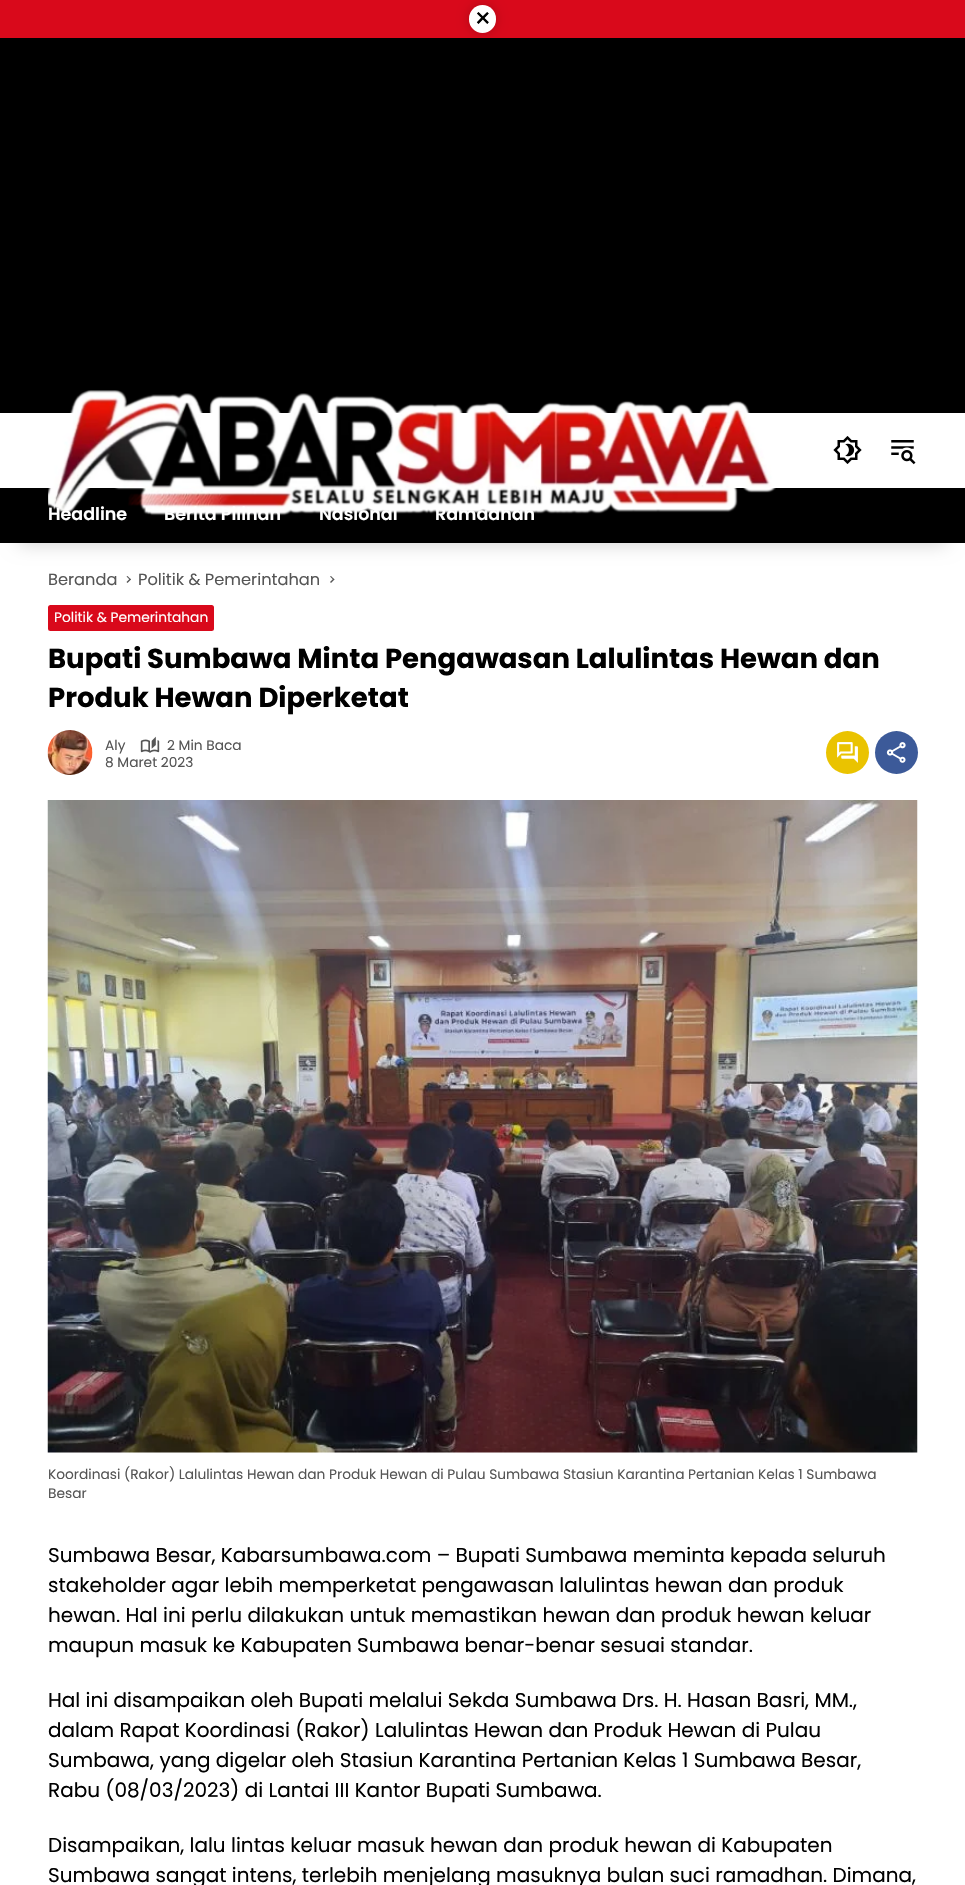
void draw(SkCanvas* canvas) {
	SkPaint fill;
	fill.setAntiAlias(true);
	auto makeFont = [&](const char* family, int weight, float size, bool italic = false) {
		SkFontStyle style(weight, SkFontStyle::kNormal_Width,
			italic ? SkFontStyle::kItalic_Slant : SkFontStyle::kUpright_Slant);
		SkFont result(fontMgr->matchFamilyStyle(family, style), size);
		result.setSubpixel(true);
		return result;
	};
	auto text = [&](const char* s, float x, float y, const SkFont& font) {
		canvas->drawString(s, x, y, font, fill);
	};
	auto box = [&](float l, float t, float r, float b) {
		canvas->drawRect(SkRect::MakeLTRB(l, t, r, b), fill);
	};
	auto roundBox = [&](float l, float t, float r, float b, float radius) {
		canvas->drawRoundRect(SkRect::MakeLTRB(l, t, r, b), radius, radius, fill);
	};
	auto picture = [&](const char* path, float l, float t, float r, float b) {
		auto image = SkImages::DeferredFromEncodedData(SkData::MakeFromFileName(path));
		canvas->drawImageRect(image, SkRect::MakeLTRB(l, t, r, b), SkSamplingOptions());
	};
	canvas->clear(0xFF000000);
	fill.setColor(0xFFD9091B);
	box(0, 0, 965, 38);
	fill.setColor(0x33000000);
	fill.setMaskFilter(SkMaskFilter::MakeBlur(kNormal_SkBlurStyle, 6));
	canvas->drawRoundRect(SkRect::MakeLTRB(469, 5, 496, 33), 13.5f, 13.5f, fill);
	fill.setMaskFilter(nullptr);
	fill.setColor(0xFFFFFFFF);
	roundBox(469, 5, 496, 33, 13.5f);
	box(0, 413, 965, 1885);
	fill.setColor(0x33000000);
	fill.setMaskFilter(SkMaskFilter::MakeBlur(kNormal_SkBlurStyle, 9.5f));
	canvas->drawRect(SkRect::MakeLTRB(19, 525, 946, 543), fill);
	fill.setMaskFilter(nullptr);
	fill.setColor(0xFF000000);
	box(0, 488, 965, 543);
	picture("image0.png", 48, 390, 776, 516);
	picture("image1.png", 833, 436, 862, 464);
	picture("image2.png", 891, 440, 916, 465);
	fill.setColor(0xFF555555);
	canvas->drawPath(SkPathBuilder().moveTo(126.5f, 576.5f).lineTo(127.5f, 576).lineTo(131, 579.5f).lineTo(130, 580).close().detach(), fill);
	canvas->drawPath(SkPathBuilder().moveTo(126.5f, 582).lineTo(130, 578.5f).lineTo(131, 579.5f).lineTo(127.5f, 583).close().detach(), fill);
	canvas->drawPath(SkPathBuilder().moveTo(330, 576.5f).lineTo(331, 576).lineTo(334.5f, 579.5f).lineTo(333.5f, 580).close().detach(), fill);
	canvas->drawPath(SkPathBuilder().moveTo(330, 582).lineTo(333.5f, 578.5f).lineTo(334.5f, 579.5f).lineTo(331, 583).close().detach(), fill);
	fill.setColor(0xFFD9091B);
	roundBox(48, 605, 214, 631, 2.5f);
	picture("image3.png", 47, 730, 93, 775);
	picture("image4.png", 140, 736, 160, 753);
	fill.setColor(0xFFEAC300);
	canvas->drawCircle(847.5f, 752.5f, 21.5f, fill);
	picture("image5.png", 837, 742, 858, 763);
	fill.setColor(0xFF3C5A99);
	canvas->drawCircle(896.5f, 752.5f, 21.5f, fill);
	picture("image6.png", 886, 742, 906, 763);
	picture("image7.png", 47, 800, 918, 1453);
	auto font1 = makeFont("Poppins", 400, 27.5f);
	fill.setColor(0xFF000000);
	text("×", 474, 28, font1);
	auto font2 = makeFont("Poppins", 600, 17.5f);
	fill.setColor(0xFFFFFFFF);
	text("Headline", 48, 520, font2);
	text("Berita Pilihan", 164, 520, font2);
	text("Nasional", 319, 520, font2);
	text("Ramadhan", 435, 520, font2);
	auto font3 = makeFont("Poppins", 400, 16.25f);
	fill.setColor(0xFF555555);
	text("Beranda", 48, 585, font3);
	text("Politik & Pemerintahan", 138, 585, font3);
	auto font4 = makeFont("Poppins", 400, 13.75f);
	fill.setColor(0xFFFFFFFF);
	text("Politik & Pemerintahan", 54, 622, font4);
	auto font5 = makeFont("Poppins", 700, 27.5f);
	fill.setColor(0xFF000000);
	text("Bupati Sumbawa Minta Pengawasan Lalulintas Hewan dan", 48, 668, font5);
	text("Produk Hewan Diperketat", 48, 707, font5);
	fill.setColor(0xFF555555);
	text("Aly", 105, 750, font4);
	text("2 Min Baca", 167, 750, font4);
	text("8 Maret 2023", 105, 767, font4);
	text("Koordinasi (Rakor) Lalulintas Hewan dan Produk Hewan di Pulau Sumbawa Stasiun Karantina Pertanian Kelas 1 Sumbawa", 48, 1479, font4);
	text("Besar", 48, 1498, font4);
	auto font6 = makeFont("Poppins", 400, 20);
	fill.setColor(0xFF000000);
	text("Sumbawa Besar, Kabarsumbawa.com – Bupati Sumbawa meminta kepada seluruh", 48, 1562, font6);
	text("stakeholder agar lebih memperketat pengawasan lalulintas hewan dan produk", 48, 1592, font6);
	text("hewan. Hal ini perlu dilakukan untuk memastikan hewan dan produk hewan keluar", 48, 1622, font6);
	text("maupun masuk ke Kabupaten Sumbawa benar-benar sesuai standar.", 48, 1652, font6);
	text("Hal ini disampaikan oleh Bupati melalui Sekda Sumbawa Drs. H. Hasan Basri, MM.,", 48, 1707, font6);
	text("dalam Rapat Koordinasi (Rakor) Lalulintas Hewan dan Produk Hewan di Pulau", 48, 1737, font6);
	text("Sumbawa, yang digelar oleh Stasiun Karantina Pertanian Kelas 1 Sumbawa Besar,", 48, 1767, font6);
	text("Rabu (08/03/2023) di Lantai III Kantor Bupati Sumbawa.", 48, 1797, font6);
	text("Disampaikan, lalu lintas keluar masuk hewan dan produk hewan di Kabupaten", 48, 1852, font6);
	text("Sumbawa sangat intens, terlebih menjelang masuknya bulan suci ramadhan. Dimana,", 48, 1882, font6);
}
